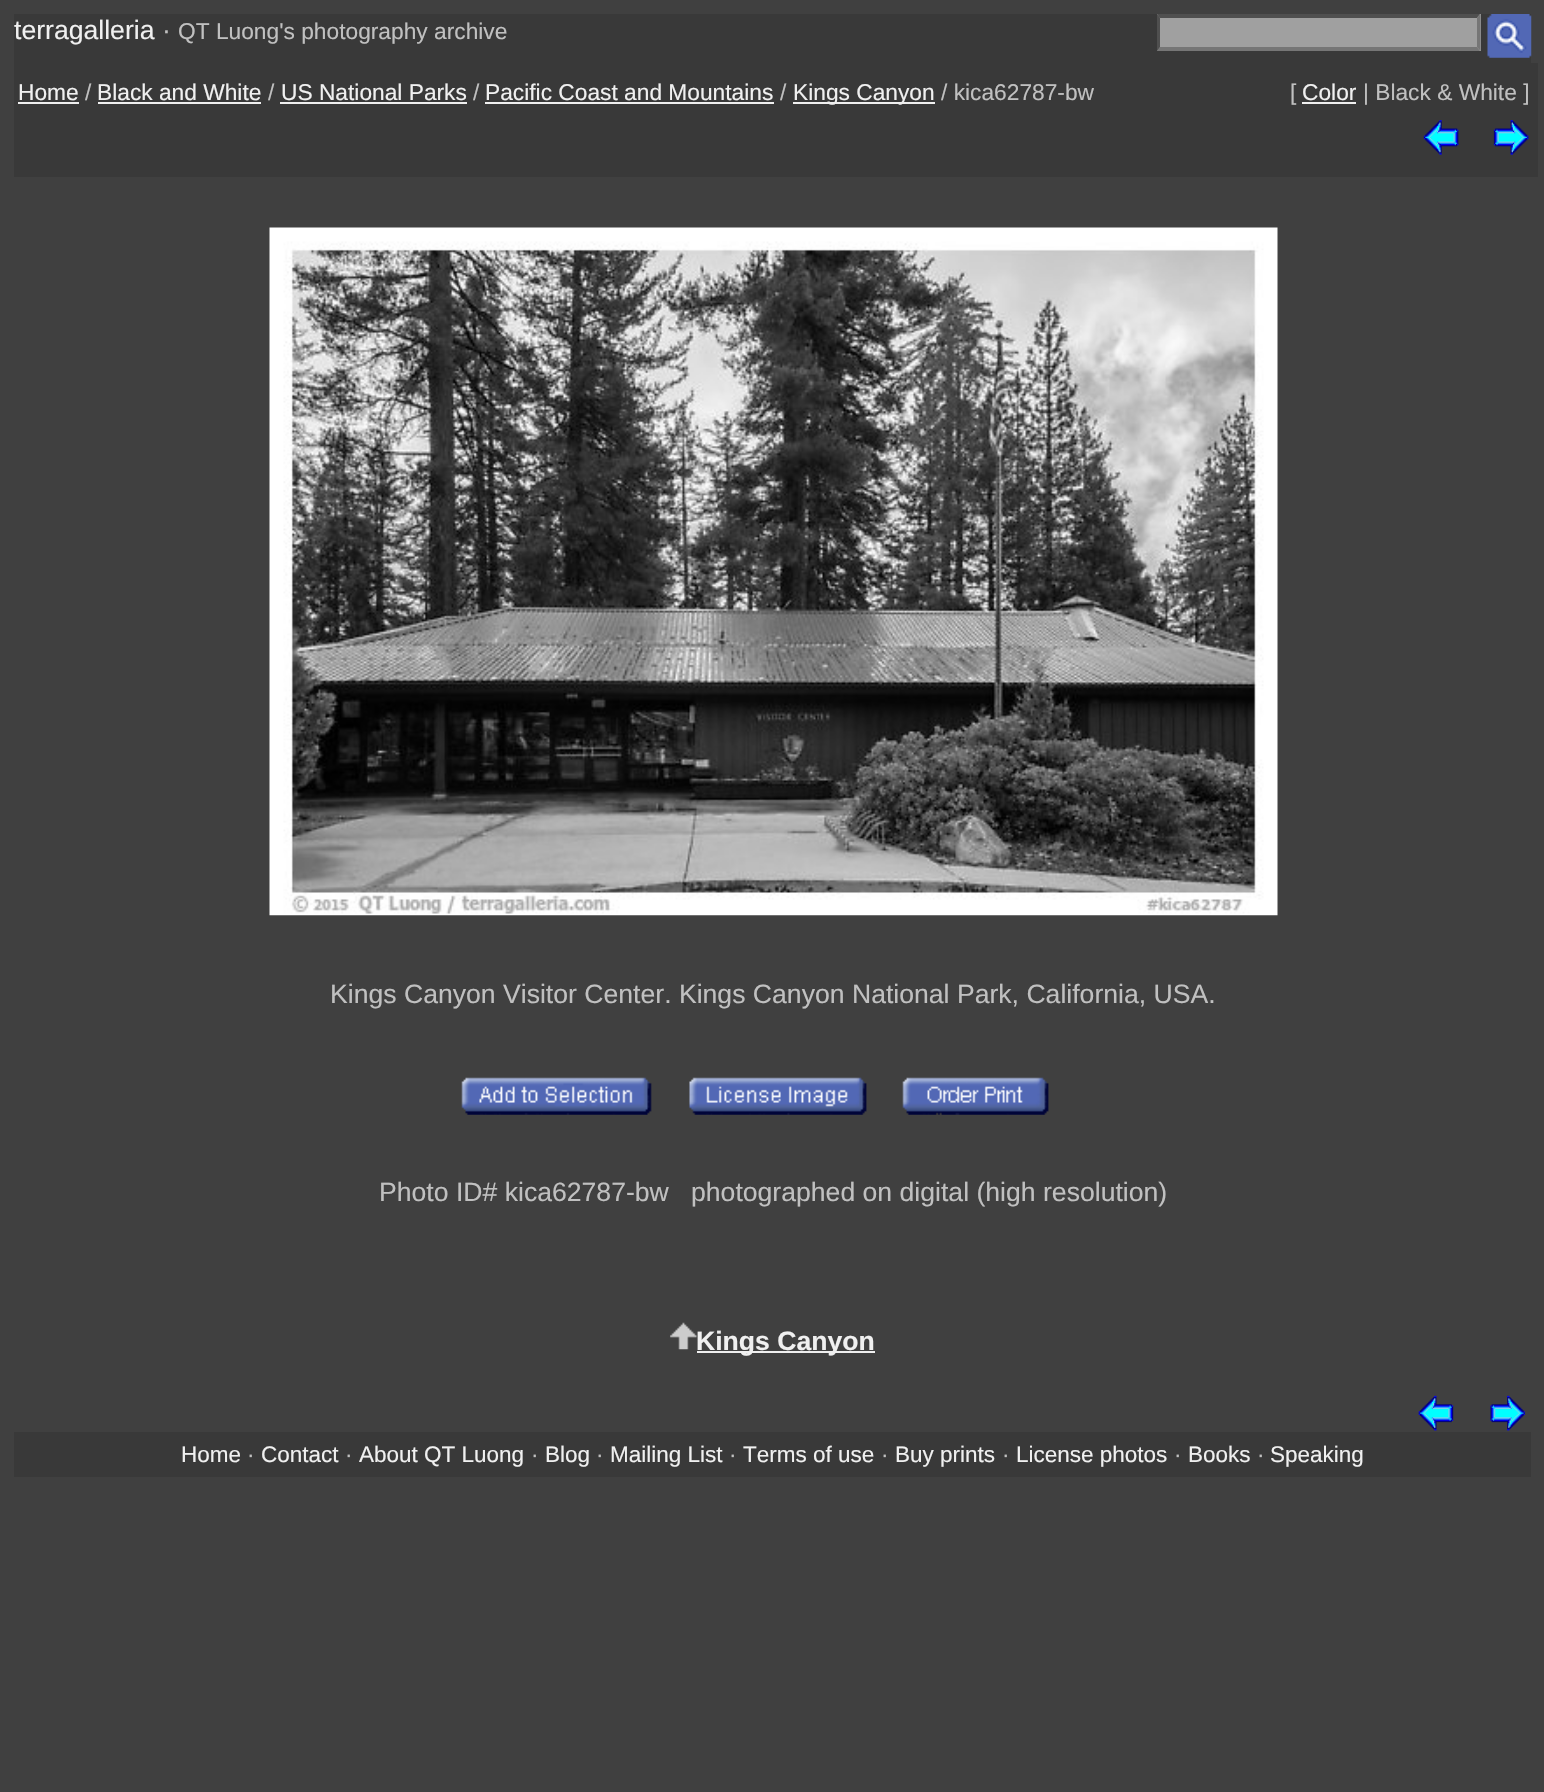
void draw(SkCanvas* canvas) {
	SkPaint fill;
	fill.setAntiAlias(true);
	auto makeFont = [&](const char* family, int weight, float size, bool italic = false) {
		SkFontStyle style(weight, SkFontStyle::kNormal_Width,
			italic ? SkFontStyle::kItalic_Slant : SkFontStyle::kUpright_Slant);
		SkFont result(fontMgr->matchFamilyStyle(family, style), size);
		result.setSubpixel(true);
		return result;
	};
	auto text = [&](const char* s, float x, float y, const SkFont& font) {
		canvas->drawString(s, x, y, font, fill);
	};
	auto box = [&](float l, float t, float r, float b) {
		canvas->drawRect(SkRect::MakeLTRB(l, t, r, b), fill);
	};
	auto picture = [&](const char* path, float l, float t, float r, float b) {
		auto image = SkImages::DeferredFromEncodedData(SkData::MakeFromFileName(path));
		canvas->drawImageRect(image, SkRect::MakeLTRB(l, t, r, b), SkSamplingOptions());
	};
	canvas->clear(0xFF404040);
	fill.setColor(0xFF393939);
	box(14, 14, 1531, 63);
	fill.setColor(0xFFA0A0A0);
	box(1157, 14, 1481, 51);
	fill.setColor(0xFF4F4F4F);
	canvas->drawPath(SkPathBuilder().moveTo(1157, 14).lineTo(1480, 14).lineTo(1477, 18).lineTo(1160, 18).close().detach(), fill);
	fill.setColor(0xFF767676);
	canvas->drawPath(SkPathBuilder().moveTo(1480.5f, 14).lineTo(1480.5f, 51).lineTo(1477, 47).lineTo(1477, 17.5f).close().detach(), fill);
	canvas->drawPath(SkPathBuilder().moveTo(1480, 51).lineTo(1157, 51).lineTo(1160, 47).lineTo(1477, 47).close().detach(), fill);
	fill.setColor(0xFF4F4F4F);
	canvas->drawPath(SkPathBuilder().moveTo(1157, 51).lineTo(1157, 14).lineTo(1160, 17.5f).lineTo(1160, 47).close().detach(), fill);
	picture("image0.png", 1487, 14, 1532, 58);
	fill.setColor(0xFF393939);
	box(14, 63, 1538, 177);
	fill.setColor(0xFFF0F0F0);
	box(18, 102, 79, 104);
	box(98, 102, 261, 104);
	box(280, 102, 467, 104);
	box(485, 102, 774, 104);
	box(793, 102, 935, 104);
	box(1302, 102, 1356, 104);
	picture("image1.png", 1423, 120, 1459, 155);
	picture("image2.png", 1493, 120, 1529, 155);
	picture("image3.png", 269, 227, 1278, 916);
	picture("image4.png", 461, 1077, 652, 1115);
	picture("image5.png", 689, 1077, 867, 1115);
	picture("image6.png", 902, 1077, 1049, 1115);
	picture("image7.png", 670, 1322, 697, 1350);
	box(697, 1351, 875, 1353);
	picture("image8.png", 1418, 1395, 1454, 1431);
	picture("image9.png", 1490, 1395, 1525, 1431);
	fill.setColor(0xFF393939);
	box(14, 1432, 1531, 1477);
	auto font1 = makeFont("Liberation Sans", 400, 26.6f);
	fill.setColor(0xFFF0F0F0);
	text("terragalleria", 14, 39, font1);
	fill.setColor(0xFFC0C0C0);
	text("·", 162, 39, font1);
	auto font2 = makeFont("Liberation Sans", 400, 22.75f);
	text("QT Luong's photography archive", 178, 39, font2);
	fill.setColor(0xFFF0F0F0);
	text("Home", 18, 100, font2);
	fill.setColor(0xFFC0C0C0);
	text("/", 85, 100, font2);
	fill.setColor(0xFFF0F0F0);
	text("Black and White", 97, 100, font2);
	fill.setColor(0xFFC0C0C0);
	text("/", 268, 100, font2);
	fill.setColor(0xFFF0F0F0);
	text("US National Parks", 281, 100, font2);
	fill.setColor(0xFFC0C0C0);
	text("/", 473, 100, font2);
	fill.setColor(0xFFF0F0F0);
	text("Pacific Coast and Mountains", 485, 100, font2);
	fill.setColor(0xFFC0C0C0);
	text("/", 780, 100, font2);
	fill.setColor(0xFFF0F0F0);
	text("Kings Canyon", 793, 100, font2);
	fill.setColor(0xFFC0C0C0);
	text("/ kica62787-bw", 941, 100, font2);
	text("[", 1290, 100, font2);
	fill.setColor(0xFFF0F0F0);
	text("Color", 1302, 100, font2);
	fill.setColor(0xFFC0C0C0);
	text("| Black & White ]", 1363, 100, font2);
	text("Kings Canyon Visitor Center. Kings Canyon National Park, California, USA.", 330, 1003, font1);
	text("Photo ID# kica62787-bw", 379, 1201, font1);
	text("photographed on digital (high resolution)", 691, 1201, font1);
	auto font3 = makeFont("Liberation Sans", 700, 26.6f);
	fill.setColor(0xFFF0F0F0);
	text("Kings Canyon", 696, 1350, font3);
	auto font4 = makeFont("Liberation Sans", 400, 22.5f);
	text("Home", 181, 1462, font4);
	fill.setColor(0xFFC0C0C0);
	text("·", 247, 1462, font4);
	fill.setColor(0xFFF0F0F0);
	text("Contact", 261, 1462, font4);
	fill.setColor(0xFFC0C0C0);
	text("·", 345, 1462, font4);
	fill.setColor(0xFFF0F0F0);
	text("About QT Luong", 359, 1462, font4);
	fill.setColor(0xFFC0C0C0);
	text("·", 531, 1462, font4);
	fill.setColor(0xFFF0F0F0);
	text("Blog", 545, 1462, font4);
	fill.setColor(0xFFC0C0C0);
	text("·", 596, 1462, font4);
	fill.setColor(0xFFF0F0F0);
	text("Mailing List", 610, 1462, font4);
	fill.setColor(0xFFC0C0C0);
	text("·", 729, 1462, font4);
	fill.setColor(0xFFF0F0F0);
	text("Terms of use", 743, 1462, font4);
	fill.setColor(0xFFC0C0C0);
	text("·", 881, 1462, font4);
	fill.setColor(0xFFF0F0F0);
	text("Buy prints", 895, 1462, font4);
	fill.setColor(0xFFC0C0C0);
	text("·", 1002, 1462, font4);
	fill.setColor(0xFFF0F0F0);
	text("License photos", 1016, 1462, font4);
	fill.setColor(0xFFC0C0C0);
	text("·", 1174, 1462, font4);
	fill.setColor(0xFFF0F0F0);
	text("Books", 1188, 1462, font4);
	fill.setColor(0xFFC0C0C0);
	text("·", 1257, 1462, font4);
	fill.setColor(0xFFF0F0F0);
	text("Speaking", 1270, 1462, font4);
}
